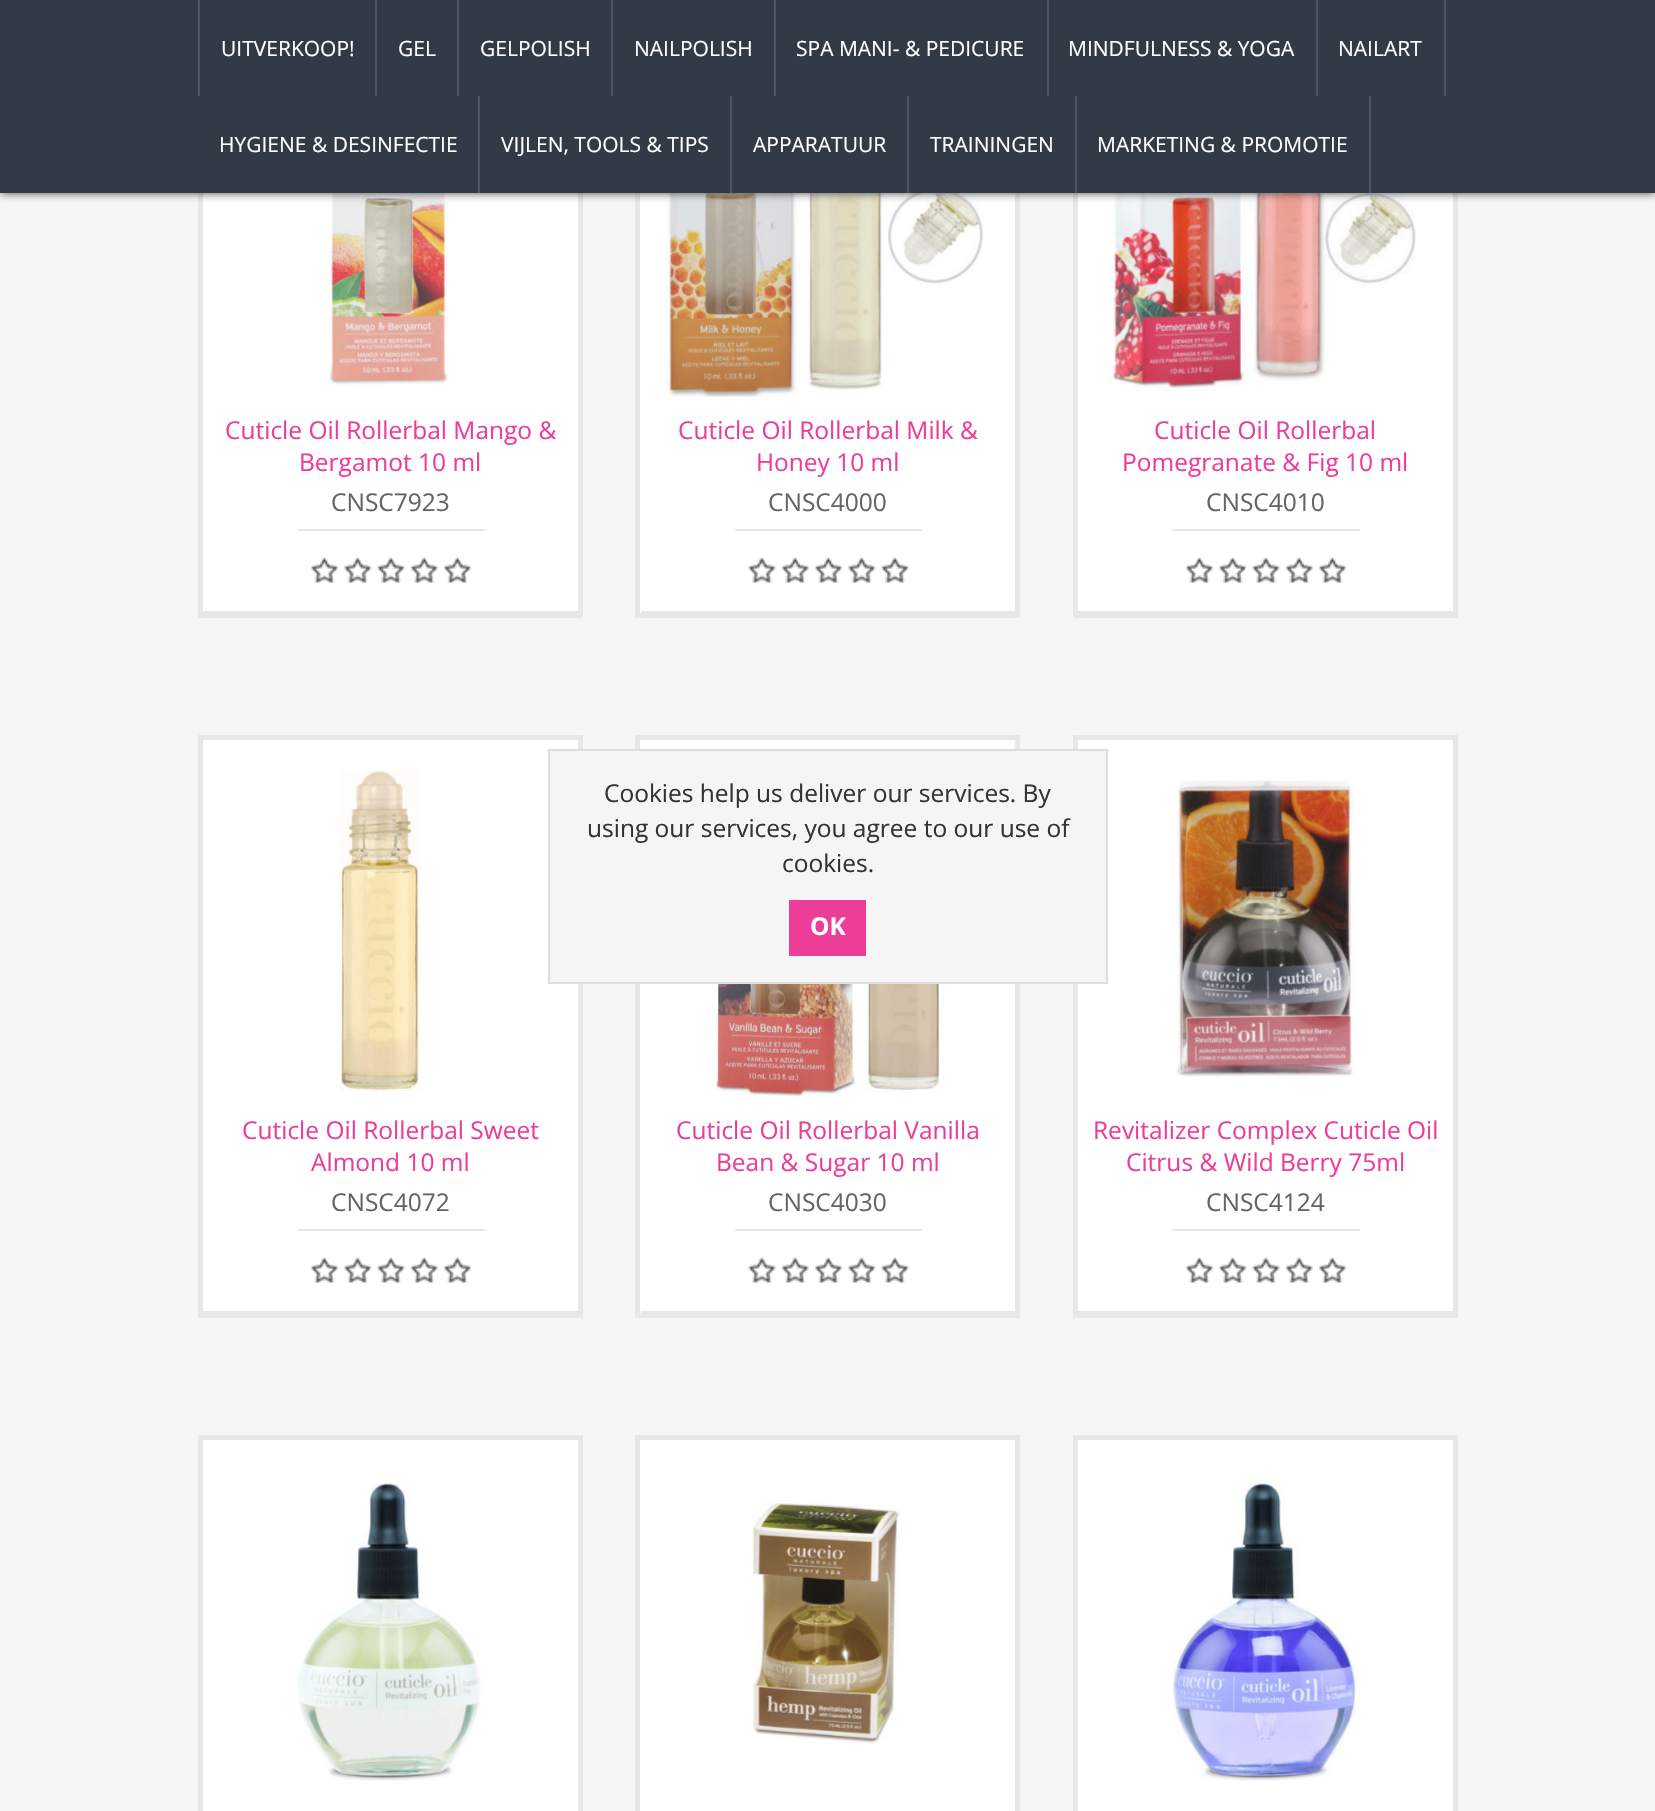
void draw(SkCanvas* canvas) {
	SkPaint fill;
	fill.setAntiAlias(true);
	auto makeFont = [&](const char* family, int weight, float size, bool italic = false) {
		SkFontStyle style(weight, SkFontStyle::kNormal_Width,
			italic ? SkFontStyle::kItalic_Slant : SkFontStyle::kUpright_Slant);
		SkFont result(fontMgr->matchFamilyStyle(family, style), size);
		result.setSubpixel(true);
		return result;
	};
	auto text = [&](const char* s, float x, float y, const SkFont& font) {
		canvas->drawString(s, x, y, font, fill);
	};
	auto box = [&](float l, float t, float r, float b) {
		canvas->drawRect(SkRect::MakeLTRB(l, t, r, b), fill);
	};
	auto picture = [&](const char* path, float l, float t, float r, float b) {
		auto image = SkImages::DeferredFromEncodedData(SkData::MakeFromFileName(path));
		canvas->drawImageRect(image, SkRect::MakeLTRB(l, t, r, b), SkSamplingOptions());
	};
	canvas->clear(0xFFF6F6F6);
	fill.setColor(0xFFFFFFFF);
	box(203, 193, 578, 611);
	fill.setStyle(SkPaint::kStroke_Style);
	fill.setStrokeWidth(5);
	fill.setColor(0xFFE7E7E7);
	canvas->drawRect(SkRect::MakeLTRB(200.5f, 37.5f, 580.5f, 615.5f), fill);
	picture("image0.png", 329, 193, 449, 385);
	fill.setStyle(SkPaint::kFill_Style);
	fill.setColor(0xFFFFFFFF);
	box(640, 193, 1015, 613);
	fill.setStyle(SkPaint::kStroke_Style);
	fill.setColor(0xFFE7E7E7);
	canvas->drawRect(SkRect::MakeLTRB(637.5f, 37.5f, 1017.5f, 615.5f), fill);
	picture("image2.png", 665, 193, 984, 397);
	fill.setStyle(SkPaint::kFill_Style);
	fill.setColor(0xFFFFFFFF);
	box(1078, 193, 1453, 611);
	fill.setStyle(SkPaint::kStroke_Style);
	fill.setColor(0xFFE7E7E7);
	canvas->drawRect(SkRect::MakeLTRB(1075.5f, 37.5f, 1455.5f, 615.5f), fill);
	picture("image4.png", 1108, 193, 1416, 391);
	fill.setStyle(SkPaint::kFill_Style);
	fill.setColor(0xFF444444);
	fill.setMaskFilter(SkMaskFilter::MakeBlur(kNormal_SkBlurStyle, 4.5f));
	canvas->drawRect(SkRect::MakeLTRB(0, 0, 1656, 193), fill);
	fill.setMaskFilter(nullptr);
	fill.setColor(0xFF323A45);
	box(0, 0, 1655, 193);
	fill.setColor(0xFF4B5461);
	box(375, 0, 377, 96);
	box(198, 0, 200, 96);
	box(457, 0, 459, 96);
	box(611, 0, 613, 96);
	box(774, 0, 776, 96);
	box(1047, 0, 1049, 96);
	box(1316, 0, 1318, 96);
	box(1444, 0, 1446, 96);
	box(478, 96, 480, 193);
	box(730, 96, 732, 193);
	box(907, 96, 909, 193);
	box(1075, 96, 1077, 193);
	box(1369, 96, 1371, 193);
	fill.setColor(0xFFE7E7E7);
	box(298, 529, 485, 531);
	picture("image1.png", 311, 557, 472, 583);
	box(203, 611, 578, 613);
	box(735, 529, 922, 531);
	picture("image3.png", 748, 557, 909, 583);
	box(641, 611, 1015, 613);
	box(1173, 529, 1360, 531);
	picture("image5.png", 1186, 557, 1347, 583);
	box(1078, 611, 1453, 613);
	fill.setColor(0xFFFFFFFF);
	box(203, 740, 578, 1311);
	fill.setStyle(SkPaint::kStroke_Style);
	fill.setColor(0xFFE7E7E7);
	canvas->drawRect(SkRect::MakeLTRB(200.5f, 737.5f, 580.5f, 1315.5f), fill);
	picture("image6.png", 339, 769, 421, 1092);
	fill.setStyle(SkPaint::kFill_Style);
	box(298, 1229, 485, 1231);
	picture("image7.png", 311, 1257, 472, 1283);
	box(203, 1311, 578, 1313);
	fill.setColor(0xFFFFFFFF);
	canvas->drawRect(SkRect::MakeLTRB(637.5f, 737.5f, 1017.5f, 1315.5f), fill);
	fill.setStyle(SkPaint::kStroke_Style);
	fill.setColor(0xFFE7E7E7);
	canvas->drawRect(SkRect::MakeLTRB(637.5f, 737.5f, 1017.5f, 1315.5f), fill);
	picture("image8.png", 715, 984, 940, 1097);
	fill.setStyle(SkPaint::kFill_Style);
	box(735, 1229, 922, 1231);
	picture("image9.png", 748, 1257, 909, 1283);
	box(641, 1311, 1015, 1313);
	fill.setColor(0xFFFFFFFF);
	box(1078, 740, 1453, 1311);
	fill.setStyle(SkPaint::kStroke_Style);
	fill.setColor(0xFFE7E7E7);
	canvas->drawRect(SkRect::MakeLTRB(1075.5f, 737.5f, 1455.5f, 1315.5f), fill);
	picture("image10.png", 1176, 780, 1355, 1077);
	fill.setStyle(SkPaint::kFill_Style);
	box(1173, 1229, 1360, 1231);
	picture("image11.png", 1186, 1257, 1347, 1283);
	box(1078, 1311, 1453, 1313);
	fill.setColor(0xFFFFFFFF);
	canvas->drawRect(SkRect::MakeLTRB(200.5f, 1437.5f, 580.5f, 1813.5f), fill);
	fill.setStyle(SkPaint::kStroke_Style);
	fill.setColor(0xFFE7E7E7);
	canvas->drawRect(SkRect::MakeLTRB(200.5f, 1437.5f, 580.5f, 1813.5f), fill);
	picture("image12.png", 298, 1483, 481, 1781);
	fill.setStyle(SkPaint::kFill_Style);
	fill.setColor(0xFFFFFFFF);
	canvas->drawRect(SkRect::MakeLTRB(637.5f, 1437.5f, 1017.5f, 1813.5f), fill);
	fill.setStyle(SkPaint::kStroke_Style);
	fill.setColor(0xFFE7E7E7);
	canvas->drawRect(SkRect::MakeLTRB(637.5f, 1437.5f, 1017.5f, 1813.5f), fill);
	picture("image13.png", 752, 1503, 900, 1744);
	fill.setStyle(SkPaint::kFill_Style);
	fill.setColor(0xFFFFFFFF);
	canvas->drawRect(SkRect::MakeLTRB(1075.5f, 1437.5f, 1455.5f, 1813.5f), fill);
	fill.setStyle(SkPaint::kStroke_Style);
	fill.setColor(0xFFE7E7E7);
	canvas->drawRect(SkRect::MakeLTRB(1075.5f, 1437.5f, 1455.5f, 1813.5f), fill);
	picture("image14.png", 1172, 1483, 1357, 1781);
	fill.setStyle(SkPaint::kFill_Style);
	fill.setColor(0xFFF5F5F5);
	canvas->drawRect(SkRect::MakeLTRB(549, 750, 1107, 983), fill);
	fill.setStyle(SkPaint::kStroke_Style);
	fill.setStrokeWidth(2);
	fill.setColor(0xFFDDDDDD);
	canvas->drawRect(SkRect::MakeLTRB(549, 750, 1107, 983), fill);
	fill.setStyle(SkPaint::kFill_Style);
	fill.setColor(0xFFEE3D96);
	box(789, 900, 866, 956);
	auto font1 = makeFont("Open Sans", 400, 21);
	fill.setColor(0xFFFFFFFF);
	text("UITVERKOOP!", 221, 56, font1);
	text("GEL", 398, 56, font1);
	text("GELPOLISH", 480, 56, font1);
	text("NAILPOLISH", 634, 56, font1);
	text("SPA MANI- & PEDICURE", 796, 56, font1);
	text("MINDFULNESS & YOGA", 1068, 56, font1);
	text("NAILART", 1338, 56, font1);
	text("HYGIENE & DESINFECTIE", 219, 152, font1);
	text("VIJLEN, TOOLS & TIPS", 501, 152, font1);
	text("APPARATUUR", 753, 152, font1);
	text("TRAININGEN", 930, 152, font1);
	text("MARKETING & PROMOTIE", 1097, 152, font1);
	auto font2 = makeFont("Open Sans", 400, 24.5f);
	fill.setColor(0xFFEE3D96);
	text("Cuticle Oil Rollerbal Mango &", 225, 439, font2);
	text("Bergamot 10 ml", 299, 471, font2);
	fill.setColor(0xFF646464);
	text("CNSC7923", 331, 511, font2);
	fill.setColor(0xFFEE3D96);
	text("Cuticle Oil Rollerbal Milk &", 678, 439, font2);
	text("Honey 10 ml", 756, 471, font2);
	fill.setColor(0xFF646464);
	text("CNSC4000", 768, 511, font2);
	fill.setColor(0xFFEE3D96);
	text("Cuticle Oil Rollerbal", 1154, 439, font2);
	text("Pomegranate & Fig 10 ml", 1122, 471, font2);
	fill.setColor(0xFF646464);
	text("CNSC4010", 1206, 511, font2);
	fill.setColor(0xFFEE3D96);
	text("Cuticle Oil Rollerbal Sweet", 242, 1139, font2);
	text("Almond 10 ml", 311, 1171, font2);
	fill.setColor(0xFF646464);
	text("CNSC4072", 331, 1211, font2);
	fill.setColor(0xFFEE3D96);
	text("Cuticle Oil Rollerbal Vanilla", 676, 1139, font2);
	text("Bean & Sugar 10 ml", 716, 1171, font2);
	fill.setColor(0xFF646464);
	text("CNSC4030", 768, 1211, font2);
	fill.setColor(0xFFEE3D96);
	text("Revitalizer Complex Cuticle Oil", 1093, 1139, font2);
	text("Citrus & Wild Berry 75ml", 1126, 1171, font2);
	fill.setColor(0xFF646464);
	text("CNSC4124", 1206, 1211, font2);
	fill.setColor(0xFF333333);
	text("Cookies help us deliver our services. By", 604, 802, font2);
	text("using our services, you agree to our use of", 587, 837, font2);
	text("cookies.", 782, 872, font2);
	auto font3 = makeFont("Open Sans", 700, 24.5f);
	fill.setColor(0xFFFFFFFF);
	text("OK", 810, 935, font3);
}
